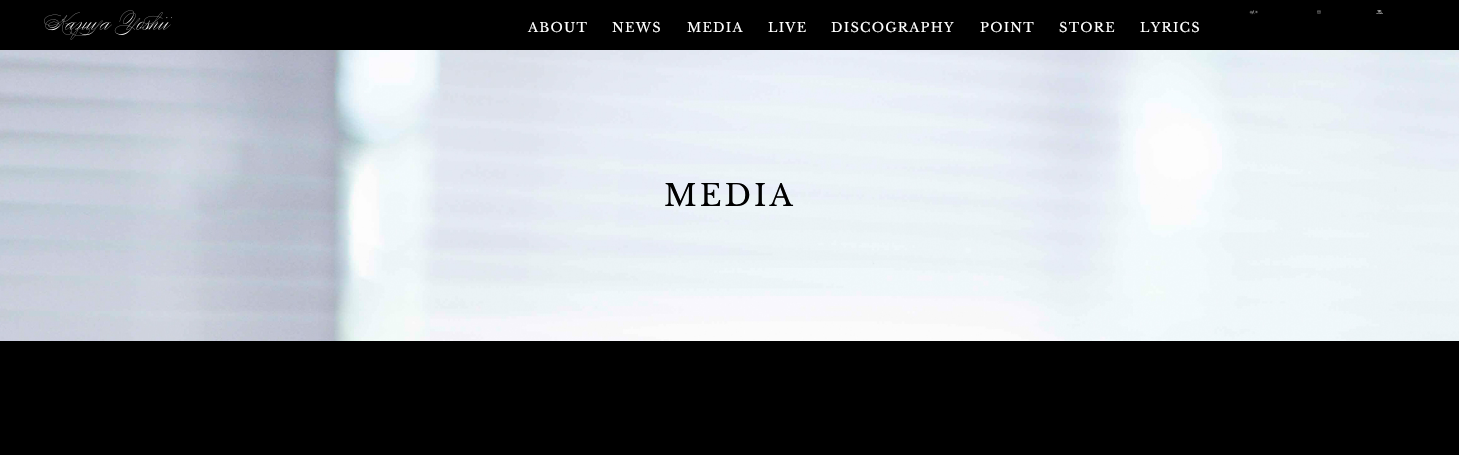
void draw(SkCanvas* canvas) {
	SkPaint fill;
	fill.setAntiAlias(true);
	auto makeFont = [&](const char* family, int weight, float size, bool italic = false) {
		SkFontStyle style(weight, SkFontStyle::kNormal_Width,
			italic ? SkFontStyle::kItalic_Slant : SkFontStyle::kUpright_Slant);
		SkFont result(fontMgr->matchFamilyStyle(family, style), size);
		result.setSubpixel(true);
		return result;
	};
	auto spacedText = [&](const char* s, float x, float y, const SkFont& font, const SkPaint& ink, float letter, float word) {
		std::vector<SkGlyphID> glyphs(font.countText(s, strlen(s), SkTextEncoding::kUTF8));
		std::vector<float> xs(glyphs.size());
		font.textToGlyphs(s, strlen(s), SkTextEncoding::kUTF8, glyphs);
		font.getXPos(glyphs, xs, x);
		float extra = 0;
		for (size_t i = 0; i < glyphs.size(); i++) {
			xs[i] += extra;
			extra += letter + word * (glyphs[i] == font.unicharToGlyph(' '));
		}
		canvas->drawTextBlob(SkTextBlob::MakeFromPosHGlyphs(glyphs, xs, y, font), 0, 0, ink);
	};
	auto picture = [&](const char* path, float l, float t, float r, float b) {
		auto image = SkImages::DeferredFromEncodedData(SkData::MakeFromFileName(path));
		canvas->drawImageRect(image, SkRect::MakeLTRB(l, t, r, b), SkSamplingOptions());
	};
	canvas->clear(0xFF000000);
	picture("image0.png", 44, 10, 172, 40);
	picture("image1.png", 1249, 10, 1258, 15);
	picture("image2.png", 1317, 10, 1321, 14);
	picture("image3.png", 1376, 10, 1383, 14);
	picture("image4.png", 0, 50, 1459, 341);
	auto font1 = makeFont("Libre Baskerville", 400, 13);
	fill.setColor(0xFFFFFFFF);
	spacedText("ABOUT", 528, 32, font1, fill, 1.25f, 0);
	spacedText("NEWS", 612, 32, font1, fill, 1.25f, 0);
	spacedText("MEDIA", 687, 32, font1, fill, 1.25f, 0);
	spacedText("LIVE", 768, 32, font1, fill, 1.25f, 0);
	spacedText("DISCOGRAPHY", 831, 32, font1, fill, 1.25f, 0);
	spacedText("POINT", 980, 32, font1, fill, 1.25f, 0);
	spacedText("STORE", 1059, 32, font1, fill, 1.25f, 0);
	spacedText("LYRICS", 1140, 32, font1, fill, 1.25f, 0);
	auto font2 = makeFont("Libre Baskerville", 400, 30);
	fill.setColor(0xFF000000);
	spacedText("MEDIA", 664, 206, font2, fill, 3, 0);
}
